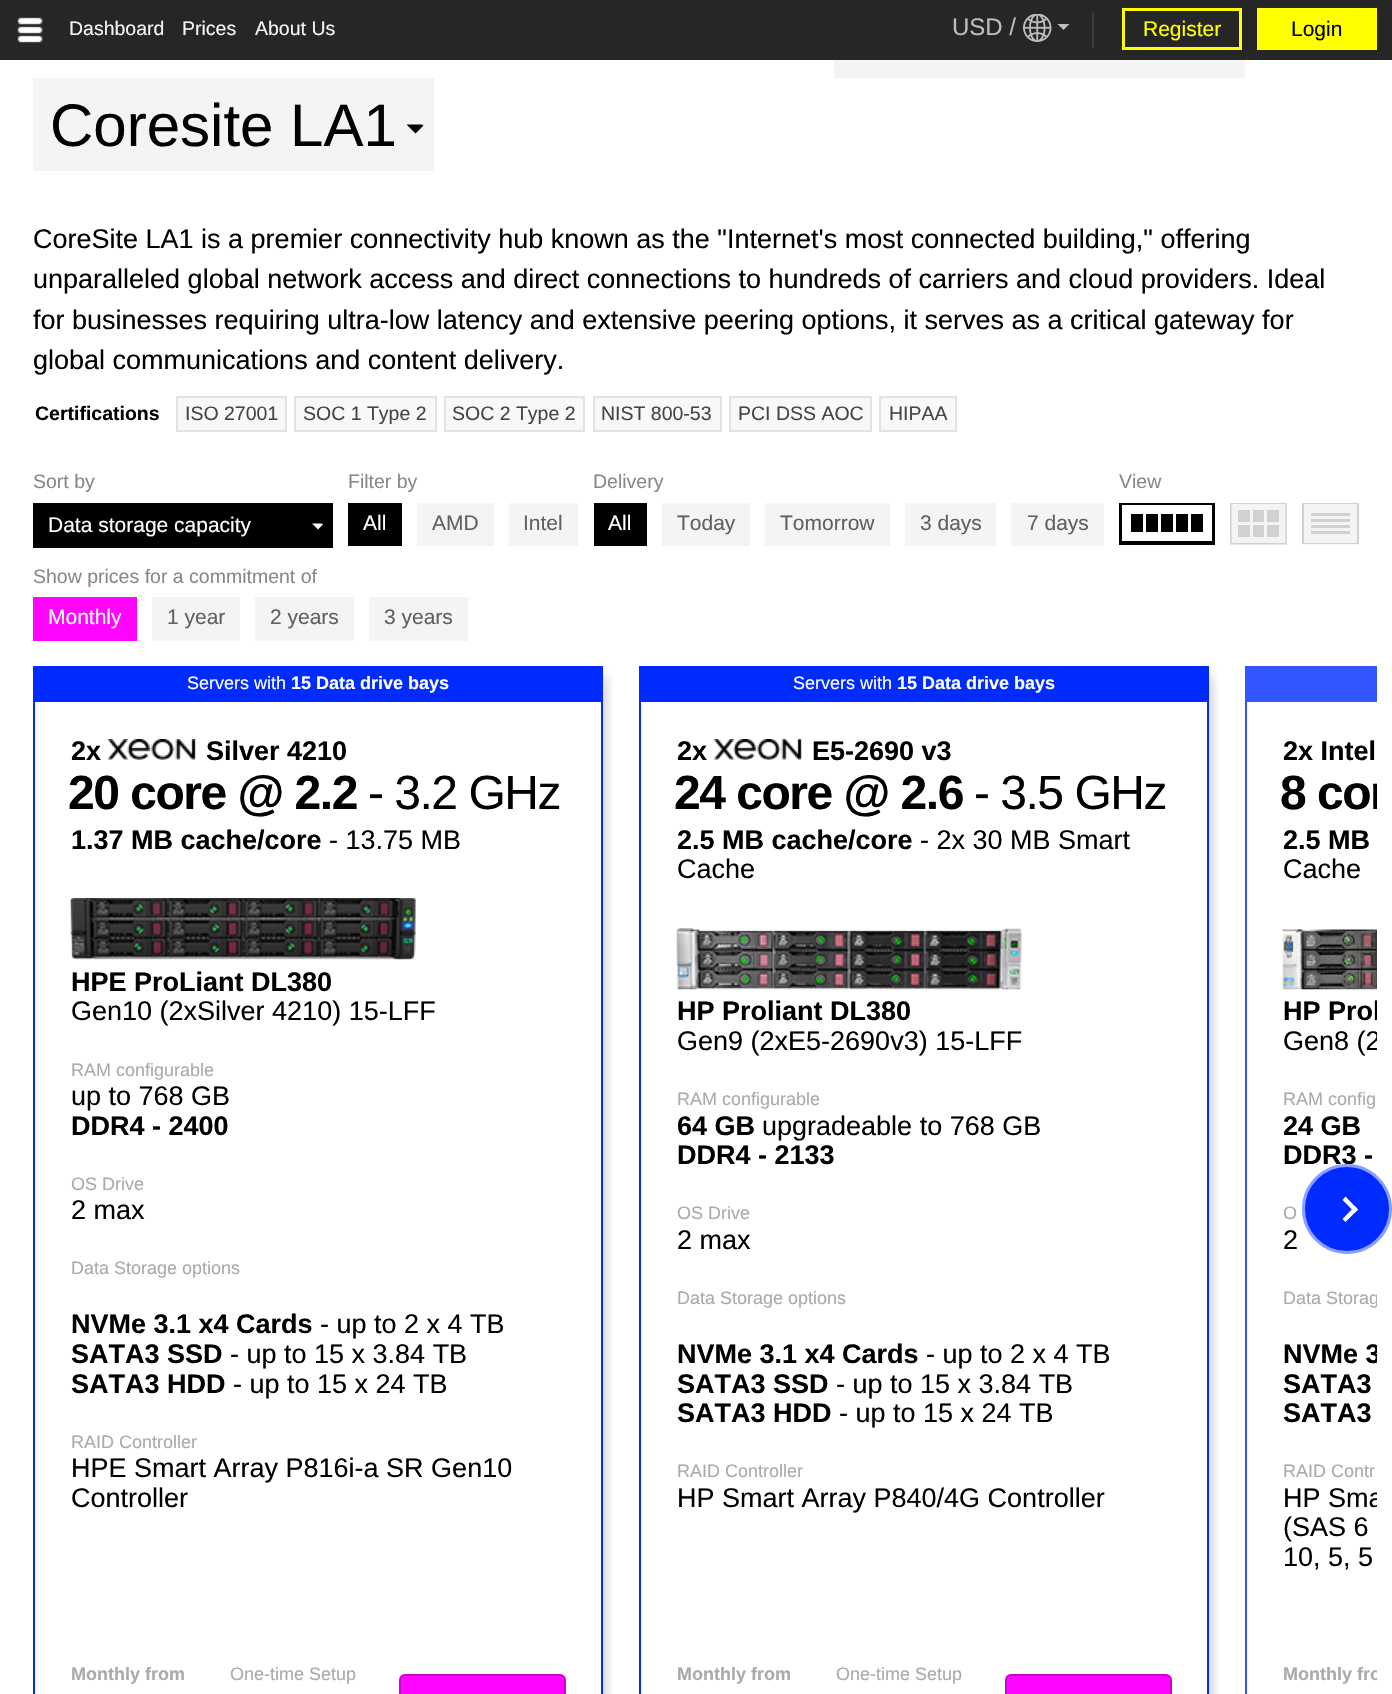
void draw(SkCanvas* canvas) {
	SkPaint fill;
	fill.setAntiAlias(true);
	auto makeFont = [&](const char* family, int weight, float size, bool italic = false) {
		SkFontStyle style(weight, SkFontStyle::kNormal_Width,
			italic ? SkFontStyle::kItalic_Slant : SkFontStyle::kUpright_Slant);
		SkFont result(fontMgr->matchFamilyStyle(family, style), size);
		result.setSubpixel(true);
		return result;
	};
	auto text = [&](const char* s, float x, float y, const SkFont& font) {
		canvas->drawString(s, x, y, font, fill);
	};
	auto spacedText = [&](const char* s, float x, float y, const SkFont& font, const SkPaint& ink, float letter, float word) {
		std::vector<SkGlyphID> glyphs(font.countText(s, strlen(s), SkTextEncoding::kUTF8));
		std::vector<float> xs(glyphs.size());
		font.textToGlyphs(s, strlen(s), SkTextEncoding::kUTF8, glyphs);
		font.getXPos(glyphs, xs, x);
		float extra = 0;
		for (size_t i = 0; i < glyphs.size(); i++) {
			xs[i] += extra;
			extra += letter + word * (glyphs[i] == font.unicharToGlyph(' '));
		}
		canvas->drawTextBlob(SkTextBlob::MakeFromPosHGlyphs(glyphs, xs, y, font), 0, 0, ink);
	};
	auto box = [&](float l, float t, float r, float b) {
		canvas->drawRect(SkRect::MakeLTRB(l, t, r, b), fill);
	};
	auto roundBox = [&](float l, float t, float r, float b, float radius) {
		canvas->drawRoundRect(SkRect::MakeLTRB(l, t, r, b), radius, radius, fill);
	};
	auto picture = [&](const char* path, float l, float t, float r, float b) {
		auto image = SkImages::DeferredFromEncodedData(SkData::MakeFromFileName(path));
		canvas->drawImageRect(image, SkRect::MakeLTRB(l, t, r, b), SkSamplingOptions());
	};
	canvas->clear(0xFFFFFFFF);
	fill.setColor(0xFF262626);
	box(0, 0, 1392, 60);
	picture("image0.png", 17, 17, 43, 43);
	picture("image1.png", 1023, 14, 1052, 42);
	fill.setColor(0xFFBEBEBE);
	canvas->drawPath(SkPathBuilder().moveTo(1057.5f, 24).lineTo(1069.5f, 24).lineTo(1063.5f, 30).close().detach(), fill);
	fill.setColor(0xFF3B3B3B);
	box(1092, 12, 1094, 48);
	fill.setStyle(SkPaint::kStroke_Style);
	fill.setStrokeWidth(3);
	fill.setColor(0xFFFFFF00);
	canvas->drawRect(SkRect::MakeLTRB(1123.5f, 9.5f, 1240.5f, 48.5f), fill);
	fill.setStyle(SkPaint::kFill_Style);
	box(1257, 8, 1377, 50);
	fill.setColor(0xFFF4F4F4);
	box(834, 60, 1245, 78);
	box(33, 78, 434, 171);
	fill.setColor(0xFF000000);
	canvas->drawPath(SkPathBuilder().moveTo(406.5f, 124.5f).lineTo(415.5f, 133.5f).lineTo(423.5f, 125.5f).cubicTo(423, 125, 422, 124.5f, 421.5f, 124.5f).close().detach(), fill);
	fill.setColor(0xFFF8F8F8);
	canvas->drawRect(SkRect::MakeLTRB(177, 397, 286, 431), fill);
	fill.setStyle(SkPaint::kStroke_Style);
	fill.setStrokeWidth(2);
	fill.setColor(0xFFE3E3E3);
	canvas->drawRect(SkRect::MakeLTRB(177, 397, 286, 431), fill);
	fill.setStyle(SkPaint::kFill_Style);
	fill.setColor(0xFFF8F8F8);
	canvas->drawRect(SkRect::MakeLTRB(295, 397, 436, 431), fill);
	fill.setStyle(SkPaint::kStroke_Style);
	fill.setColor(0xFFE3E3E3);
	canvas->drawRect(SkRect::MakeLTRB(295, 397, 436, 431), fill);
	fill.setStyle(SkPaint::kFill_Style);
	fill.setColor(0xFFF8F8F8);
	canvas->drawRect(SkRect::MakeLTRB(445, 397, 584, 431), fill);
	fill.setStyle(SkPaint::kStroke_Style);
	fill.setColor(0xFFE3E3E3);
	canvas->drawRect(SkRect::MakeLTRB(445, 397, 584, 431), fill);
	fill.setStyle(SkPaint::kFill_Style);
	fill.setColor(0xFFF8F8F8);
	canvas->drawRect(SkRect::MakeLTRB(594, 397, 721, 431), fill);
	fill.setStyle(SkPaint::kStroke_Style);
	fill.setColor(0xFFE3E3E3);
	canvas->drawRect(SkRect::MakeLTRB(594, 397, 721, 431), fill);
	fill.setStyle(SkPaint::kFill_Style);
	fill.setColor(0xFFF8F8F8);
	canvas->drawRect(SkRect::MakeLTRB(730, 397, 871, 431), fill);
	fill.setStyle(SkPaint::kStroke_Style);
	fill.setColor(0xFFE3E3E3);
	canvas->drawRect(SkRect::MakeLTRB(730, 397, 871, 431), fill);
	fill.setStyle(SkPaint::kFill_Style);
	fill.setColor(0xFFF8F8F8);
	canvas->drawRect(SkRect::MakeLTRB(880, 397, 956, 431), fill);
	fill.setStyle(SkPaint::kStroke_Style);
	fill.setColor(0xFFE3E3E3);
	canvas->drawRect(SkRect::MakeLTRB(880, 397, 956, 431), fill);
	fill.setStyle(SkPaint::kFill_Style);
	fill.setColor(0xFF000000);
	box(33, 503, 333, 548);
	fill.setColor(0xFFFFFFFF);
	canvas->drawPath(SkPathBuilder().moveTo(312, 523.5f).lineTo(318, 529.5f).lineTo(323, 524.5f).cubicTo(322.5f, 524, 321.5f, 523.5f, 319.5f, 523.5f).close().detach(), fill);
	fill.setColor(0xFF000000);
	box(348, 503, 402, 546);
	fill.setColor(0xFFF4F4F4);
	box(417, 503, 494, 546);
	box(509, 503, 578, 546);
	fill.setColor(0xFF000000);
	box(594, 503, 647, 546);
	fill.setColor(0xFFF4F4F4);
	box(662, 503, 750, 546);
	box(765, 503, 890, 546);
	box(905, 503, 996, 546);
	box(1011, 503, 1104, 546);
	fill.setColor(0xFF000000);
	box(1119, 544, 1215, 545);
	canvas->save();
	canvas->clipRect(SkRect::MakeLTRB(1119, 503, 1215, 545));
	canvas->drawPath(SkPathBuilder().moveTo(1212, 505).lineTo(1212, 541).lineTo(1122, 541).lineTo(1122, 505).lineTo(1212, 505).moveTo(1215, 502).lineTo(1119, 502).lineTo(1119, 544).lineTo(1215, 544).close().detach(), fill);
	canvas->restore();
	box(1131, 514, 1143, 532);
	box(1146, 514, 1158, 532);
	box(1161, 514, 1173, 532);
	box(1176, 514, 1188, 532);
	box(1191, 514, 1203, 532);
	fill.setColor(0xFFF4F4F4);
	box(1230, 503, 1287, 545);
	picture("image2.png", 1230, 503, 1287, 545);
	box(1302, 504, 1359, 545);
	canvas->save();
	canvas->clipRect(SkRect::MakeLTRB(1302, 503, 1359, 545));
	fill.setColor(0xFFD1D1D1);
	canvas->drawPath(SkPathBuilder().moveTo(1357, 504).lineTo(1357, 543).lineTo(1304, 543).lineTo(1304, 504).lineTo(1357, 504).moveTo(1359, 502).lineTo(1302, 502).lineTo(1302, 544).lineTo(1359, 544).close().detach(), fill);
	canvas->restore();
	box(1311, 513, 1350, 516);
	box(1311, 519, 1350, 522);
	box(1311, 525, 1350, 528);
	box(1311, 531, 1350, 534);
	fill.setColor(0xFFFF04FF);
	box(33, 597, 137, 641);
	fill.setColor(0xFFF4F4F4);
	box(152, 597, 240, 641);
	box(255, 597, 354, 641);
	box(369, 597, 468, 641);
	canvas->save();
	canvas->clipRect(SkRect::MakeLTRB(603, 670, 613, 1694));
	fill.setColor(0x26000000);
	fill.setMaskFilter(SkMaskFilter::MakeBlur(kNormal_SkBlurStyle, 4.5f));
	canvas->drawRoundRect(SkRect::MakeLTRB(38, 671, 608, 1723), 15, 15, fill);
	fill.setMaskFilter(nullptr);
	canvas->restore();
	fill.setStyle(SkPaint::kStroke_Style);
	fill.setColor(0xFF002BFF);
	canvas->drawRect(SkRect::MakeLTRB(34, 667, 602, 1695), fill);
	fill.setStyle(SkPaint::kFill_Style);
	box(35, 668, 601, 702);
	picture("image3.png", 108, 739, 196, 760);
	picture("image4.png", 70, 898, 416, 960);
	fill.setColor(0xFFFF04FF);
	roundBox(399, 1674, 566, 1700, 6);
	fill.setStyle(SkPaint::kStroke_Style);
	fill.setColor(0x33000000);
	canvas->drawRoundRect(SkRect::MakeLTRB(400, 1675, 565, 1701), 5, 5, fill);
	canvas->save();
	canvas->clipRect(SkRect::MakeLTRB(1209, 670, 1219, 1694));
	fill.setStyle(SkPaint::kFill_Style);
	fill.setColor(0x26000000);
	fill.setMaskFilter(SkMaskFilter::MakeBlur(kNormal_SkBlurStyle, 4.5f));
	canvas->drawRoundRect(SkRect::MakeLTRB(644, 671, 1214, 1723), 15, 15, fill);
	fill.setMaskFilter(nullptr);
	canvas->restore();
	fill.setStyle(SkPaint::kStroke_Style);
	fill.setColor(0xFF002BFF);
	canvas->drawRect(SkRect::MakeLTRB(640, 667, 1208, 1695), fill);
	fill.setStyle(SkPaint::kFill_Style);
	box(641, 668, 1207, 702);
	picture("image5.png", 714, 739, 802, 760);
	picture("image6.png", 676, 928, 1022, 990);
	fill.setColor(0xFFFF04FF);
	roundBox(1005, 1674, 1172, 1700, 6);
	fill.setStyle(SkPaint::kStroke_Style);
	fill.setColor(0x33000000);
	canvas->drawRoundRect(SkRect::MakeLTRB(1006, 1675, 1171, 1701), 5, 5, fill);
	canvas->save();
	canvas->clipRect(SkRect::MakeLTRB(15, 648, 1377, 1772));
	fill.setColor(0xFF3355FF);
	canvas->drawPath(SkPathBuilder().moveTo(1246, 667).lineTo(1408, 667).lineTo(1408, 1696).cubicTo(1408, 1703.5f, 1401.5f, 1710, 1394, 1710).lineTo(1260, 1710).cubicTo(1252.5f, 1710, 1246, 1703.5f, 1246, 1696).close().detach(), fill);
	canvas->restore();
	fill.setStyle(SkPaint::kFill_Style);
	box(1247, 668, 1377, 702);
	picture("image7.png", 1282, 929, 1377, 990);
	auto font1 = makeFont("Liberation Sans", 400, 19.5f);
	fill.setColor(0xFFF5F5F5);
	text("Dashboard", 69, 35, font1);
	text("Prices", 182, 35, font1);
	text("About Us", 255, 35, font1);
	auto font2 = makeFont("Liberation Sans", 400, 24);
	fill.setColor(0xFFBEBEBE);
	text("USD /", 952, 35, font2);
	auto font3 = makeFont("Liberation Sans", 400, 21);
	fill.setColor(0xFFFFFF00);
	text("Register", 1143, 36, font3);
	fill.setColor(0xFF000000);
	text("Login", 1291, 36, font3);
	auto font4 = makeFont("Liberation Sans", 400, 60);
	text("Coresite LA1", 50, 146, font4);
	auto font5 = makeFont("Liberation Sans", 400, 27);
	text("CoreSite LA1 is a premier connectivity hub known as the \"Internet's most connected building,\" offering", 33, 248, font5);
	text("unparalleled global network access and direct connections to hundreds of carriers and cloud providers. Ideal", 33, 288, font5);
	text("for businesses requiring ultra-low latency and extensive peering options, it serves as a critical gateway for", 33, 329, font5);
	text("global communications and content delivery.", 33, 369, font5);
	auto font6 = makeFont("Liberation Sans", 700, 19.5f);
	text("Certifications", 35, 420, font6);
	fill.setColor(0xFF444444);
	text("ISO 27001", 185, 420, font1);
	text("SOC 1 Type 2", 303, 420, font1);
	text("SOC 2 Type 2", 452, 420, font1);
	text("NIST 800-53", 601, 420, font1);
	text("PCI DSS AOC", 738, 420, font1);
	text("HIPAA", 889, 420, font1);
	fill.setColor(0xFF888888);
	text("Sort by", 33, 488, font1);
	fill.setColor(0xFFFFFFFF);
	text("Data storage capacity", 48, 532, font3);
	fill.setColor(0xFF888888);
	text("Filter by", 348, 488, font1);
	fill.setColor(0xFFFFFFFF);
	text("All", 363, 530, font3);
	fill.setColor(0xFF606060);
	text("AMD", 432, 530, font3);
	text("Intel", 523, 530, font3);
	fill.setColor(0xFF888888);
	text("Delivery", 593, 488, font1);
	fill.setColor(0xFFFFFFFF);
	text("All", 608, 530, font3);
	fill.setColor(0xFF606060);
	text("Today", 677, 530, font3);
	text("Tomorrow", 780, 530, font3);
	text("3 days", 920, 530, font3);
	text("7 days", 1027, 530, font3);
	fill.setColor(0xFF888888);
	text("View", 1119, 488, font1);
	text("Show prices for a commitment of", 33, 583, font1);
	fill.setColor(0xFFFFFFFF);
	text("Monthly", 48, 624, font3);
	fill.setColor(0xFF606060);
	text("1 year", 167, 624, font3);
	text("2 years", 270, 624, font3);
	text("3 years", 384, 624, font3);
	auto font7 = makeFont("Liberation Sans", 400, 18);
	fill.setColor(0xFFFFFFFF);
	text("Servers with", 187, 689, font7);
	auto font8 = makeFont("Liberation Sans", 700, 18);
	text("15 Data drive bays", 291, 689, font8);
	auto font9 = makeFont("Liberation Sans", 700, 27);
	fill.setColor(0xFF000000);
	text("2x", 71, 760, font9);
	text("Silver 4210", 206, 760, font9);
	auto font10 = makeFont("Liberation Sans", 700, 48);
	spacedText("20 core @ 2.2", 68, 809, font10, fill, -1.5f, 0);
	auto font11 = makeFont("Liberation Sans", 400, 48);
	spacedText("- 3.2 GHz", 368, 809, font11, fill, -1.5f, 0);
	text("1.37 MB cache/core", 71, 849, font9);
	text("- 13.75 MB", 329, 849, font5);
	text("HPE ProLiant DL380", 71, 991, font9);
	text("Gen10 (2xSilver 4210) 15-LFF", 71, 1020, font5);
	fill.setColor(0xFFAAAAAA);
	text("RAM configurable", 71, 1076, font7);
	fill.setColor(0xFF000000);
	text("up to 768 GB", 71, 1105, font5);
	text("DDR4 - 2400", 71, 1135, font9);
	fill.setColor(0xFFAAAAAA);
	text("OS Drive", 71, 1190, font7);
	fill.setColor(0xFF000000);
	text("2 max", 71, 1219, font5);
	fill.setColor(0xFFAAAAAA);
	text("Data Storage options", 71, 1274, font7);
	fill.setColor(0xFF000000);
	text("NVMe 3.1 x4 Cards", 71, 1333, font9);
	text("- up to 2 x 4 TB", 320, 1333, font5);
	text("SATA3 SSD", 71, 1363, font9);
	text("- up to 15 x 3.84 TB", 230, 1363, font5);
	text("SATA3 HDD", 71, 1393, font9);
	text("- up to 15 x 24 TB", 233, 1393, font5);
	fill.setColor(0xFFAAAAAA);
	text("RAID Controller", 71, 1448, font7);
	fill.setColor(0xFF000000);
	text("HPE Smart Array P816i-a SR Gen10", 71, 1477, font5);
	text("Controller", 71, 1507, font5);
	fill.setColor(0xFFAAAAAA);
	text("Monthly from", 71, 1680, font8);
	text("One-time Setup", 230, 1680, font7);
	fill.setColor(0xFFFFFFFF);
	text("Servers with", 793, 689, font7);
	text("15 Data drive bays", 897, 689, font8);
	fill.setColor(0xFF000000);
	text("2x", 677, 760, font9);
	text("E5-2690 v3", 812, 760, font9);
	spacedText("24 core @ 2.6", 674, 809, font10, fill, -1.5f, 0);
	spacedText("- 3.5 GHz", 974, 809, font11, fill, -1.5f, 0);
	text("2.5 MB cache/core", 677, 849, font9);
	text("- 2x 30 MB Smart", 920, 849, font5);
	text("Cache", 677, 878, font5);
	text("HP Proliant DL380", 677, 1020, font9);
	text("Gen9 (2xE5-2690v3) 15-LFF", 677, 1050, font5);
	fill.setColor(0xFFAAAAAA);
	text("RAM configurable", 677, 1105, font7);
	fill.setColor(0xFF000000);
	text("64 GB", 677, 1135, font9);
	text("upgradeable to 768 GB", 762, 1135, font5);
	text("DDR4 - 2133", 677, 1164, font9);
	fill.setColor(0xFFAAAAAA);
	text("OS Drive", 677, 1219, font7);
	fill.setColor(0xFF000000);
	text("2 max", 677, 1249, font5);
	fill.setColor(0xFFAAAAAA);
	text("Data Storage options", 677, 1304, font7);
	fill.setColor(0xFF000000);
	text("NVMe 3.1 x4 Cards", 677, 1363, font9);
	text("- up to 2 x 4 TB", 926, 1363, font5);
	text("SATA3 SSD", 677, 1393, font9);
	text("- up to 15 x 3.84 TB", 836, 1393, font5);
	text("SATA3 HDD", 677, 1422, font9);
	text("- up to 15 x 24 TB", 839, 1422, font5);
	fill.setColor(0xFFAAAAAA);
	text("RAID Controller", 677, 1477, font7);
	fill.setColor(0xFF000000);
	text("HP Smart Array P840/4G Controller", 677, 1507, font5);
	fill.setColor(0xFFAAAAAA);
	text("Monthly from", 677, 1680, font8);
	text("One-time Setup", 836, 1680, font7);
	fill.setColor(0xFF000000);
	text("2x Intel", 1283, 760, font9);
	canvas->save();
	canvas->clipRect(SkRect::MakeLTRB(15, 648, 1377, 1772));
	spacedText("8 cor", 1280, 809, font10, fill, -1.5f, 0);
	canvas->restore();
	text("2.5 MB", 1283, 849, font9);
	text("Cache", 1283, 878, font5);
	canvas->save();
	canvas->clipRect(SkRect::MakeLTRB(15, 648, 1377, 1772));
	text("HP Prol", 1283, 1020, font9);
	text("Gen8 (2", 1283, 1050, font5);
	canvas->restore();
	fill.setColor(0xFFAAAAAA);
	text("RAM config", 1283, 1105, font7);
	fill.setColor(0xFF000000);
	text("24 GB", 1283, 1135, font9);
	text("DDR3 -", 1283, 1164, font9);
	fill.setColor(0xFFAAAAAA);
	text("O", 1283, 1219, font7);
	fill.setColor(0xFF000000);
	text("2", 1283, 1249, font5);
	canvas->save();
	canvas->clipRect(SkRect::MakeLTRB(15, 648, 1377, 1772));
	fill.setColor(0xFFAAAAAA);
	text("Data Storag", 1283, 1304, font7);
	fill.setColor(0xFF000000);
	text("NVMe 3", 1283, 1363, font9);
	canvas->restore();
	text("SATA3", 1283, 1393, font9);
	text("SATA3", 1283, 1422, font9);
	fill.setColor(0xFFAAAAAA);
	text("RAID Contr", 1283, 1477, font7);
	canvas->save();
	canvas->clipRect(SkRect::MakeLTRB(15, 648, 1377, 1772));
	fill.setColor(0xFF000000);
	text("HP Sma", 1283, 1507, font5);
	canvas->restore();
	text("(SAS 6", 1283, 1536, font5);
	text("10, 5, 5", 1283, 1566, font5);
	canvas->save();
	canvas->clipRect(SkRect::MakeLTRB(15, 648, 1377, 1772));
	fill.setColor(0xFFAAAAAA);
	text("Monthly fro", 1283, 1680, font8);
	canvas->restore();
	fill.setColor(0xFF002BFF);
	canvas->drawCircle(1347, 1209, 43.5f, fill);
	fill.setStyle(SkPaint::kStroke_Style);
	fill.setStrokeWidth(3);
	fill.setColor(0xFF8A9EFF);
	canvas->drawCircle(1347, 1209, 43.5f, fill);
	fill.setStyle(SkPaint::kFill_Style);
	fill.setColor(0xFFFFFFFF);
	canvas->drawPath(SkPathBuilder().moveTo(1345.5f, 1196.5f).lineTo(1358, 1209.5f).lineTo(1355, 1212.5f).lineTo(1342.5f, 1200).close().detach(), fill);
	canvas->drawPath(SkPathBuilder().moveTo(1355, 1206).lineTo(1358, 1209.5f).lineTo(1345.5f, 1222).lineTo(1342.5f, 1219).close().detach(), fill);
}
